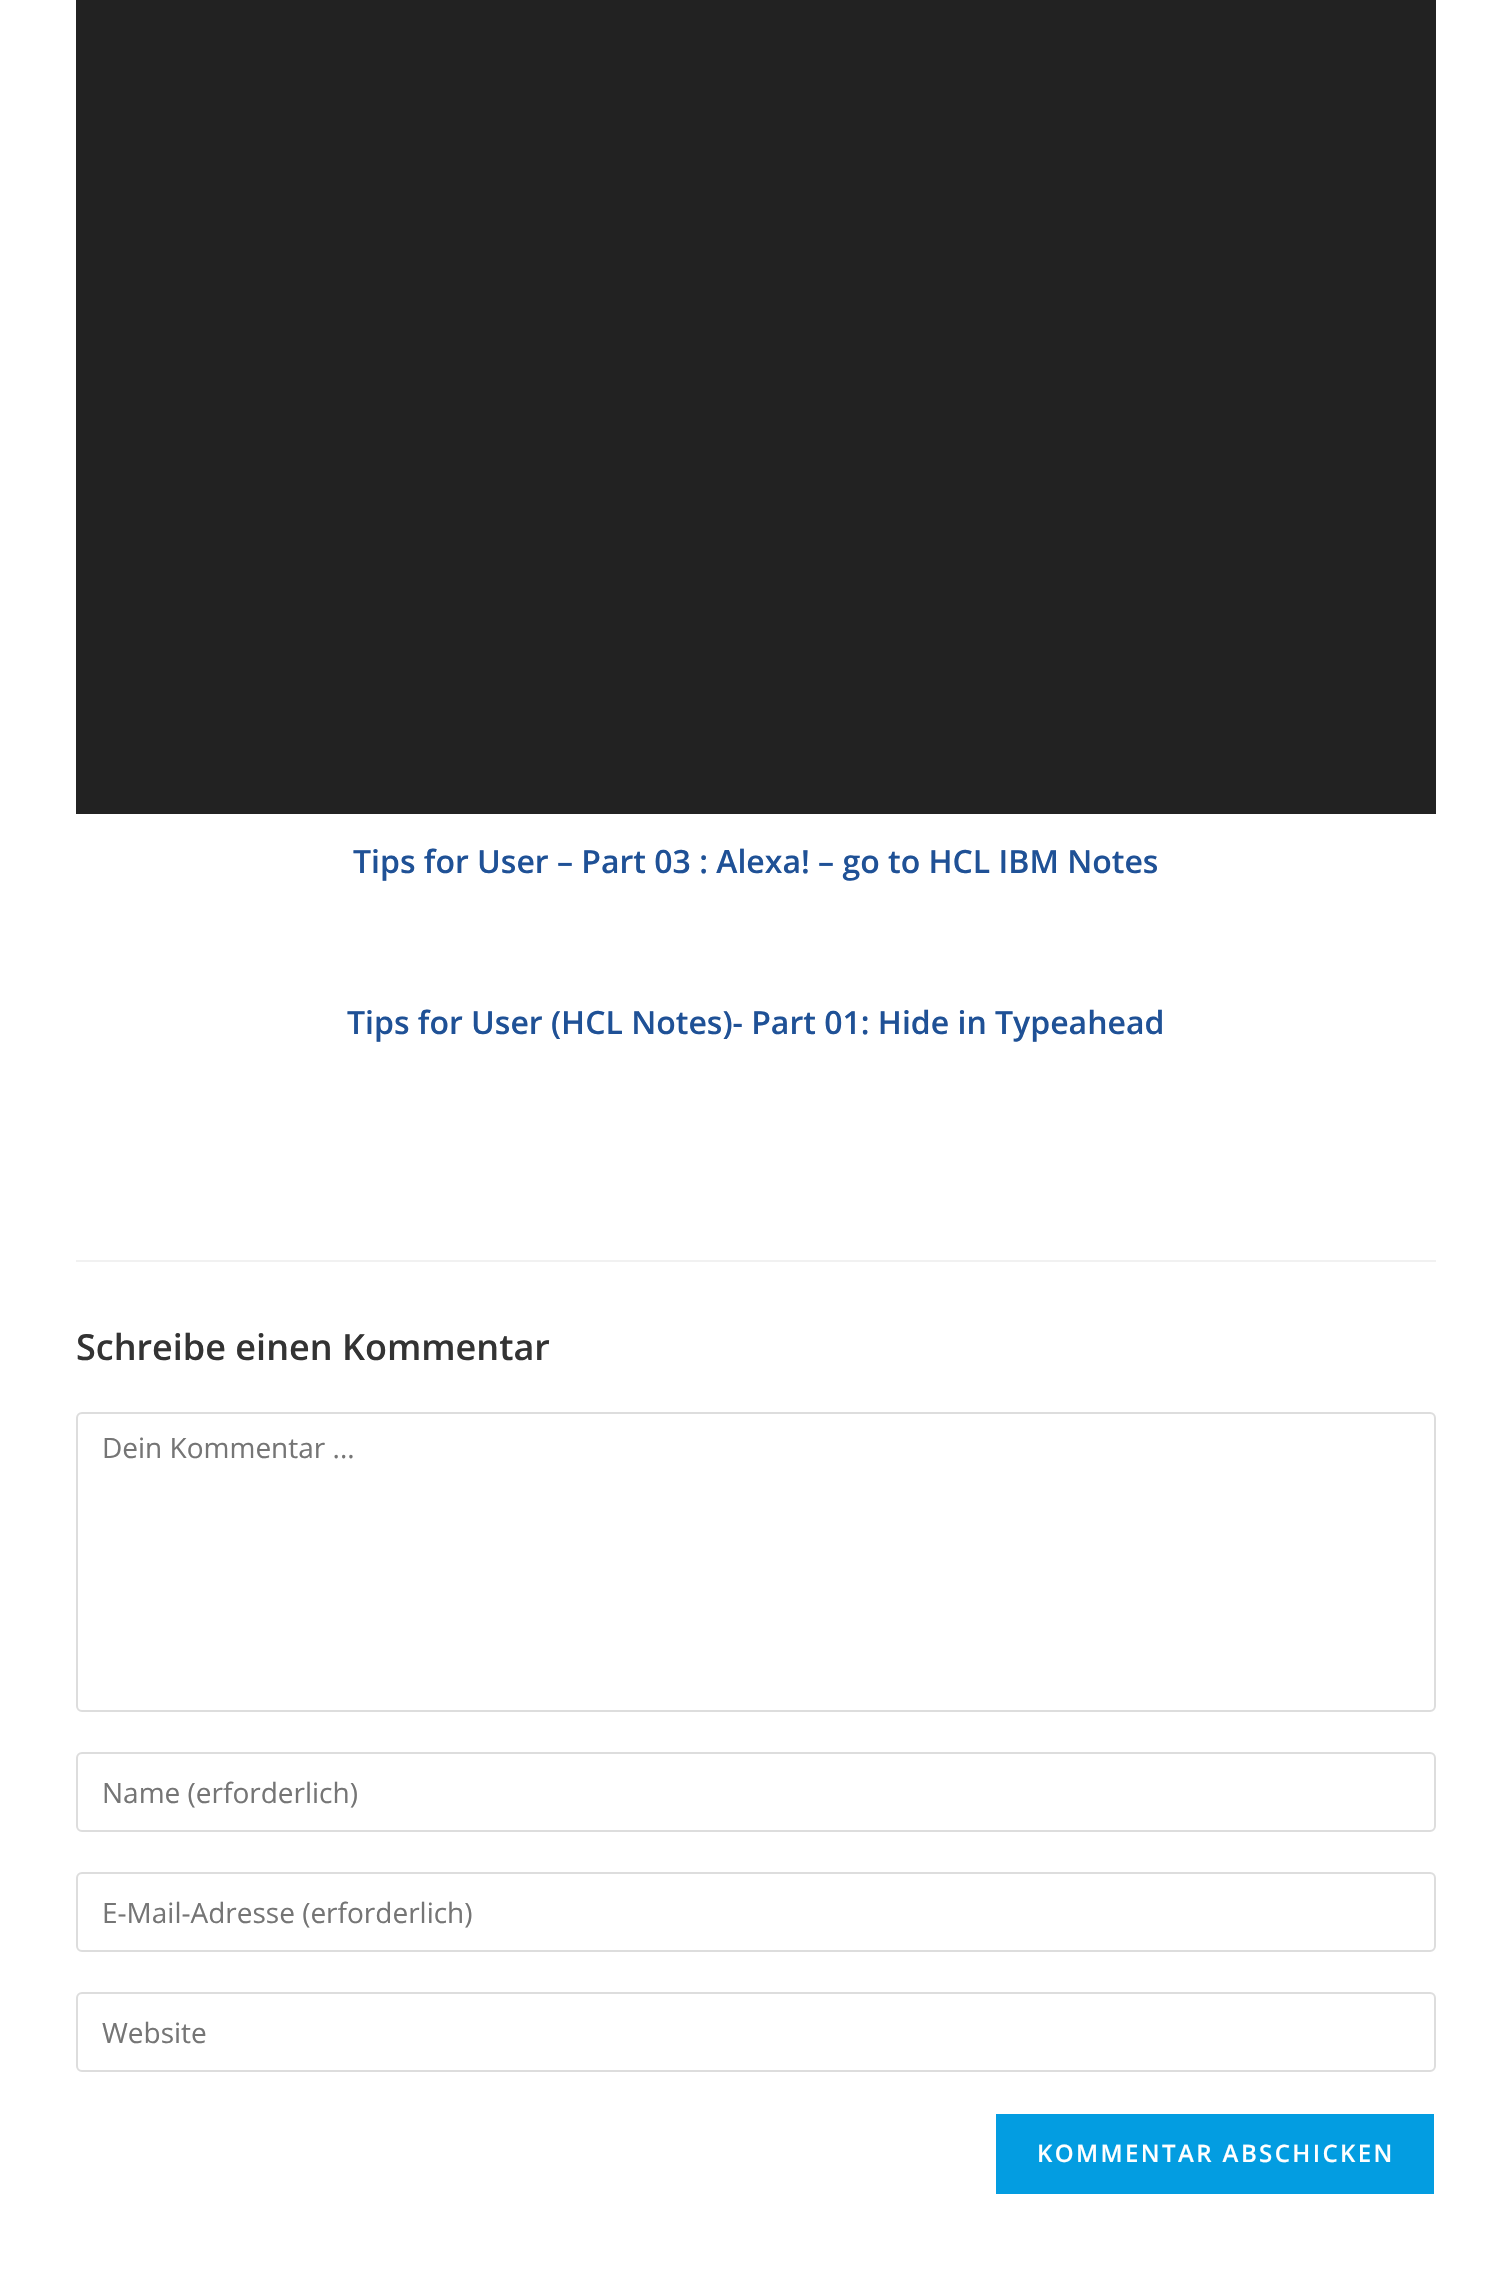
void draw(SkCanvas* canvas) {
	SkPaint fill;
	fill.setAntiAlias(true);
	auto makeFont = [&](const char* family, int weight, float size, bool italic = false) {
		SkFontStyle style(weight, SkFontStyle::kNormal_Width,
			italic ? SkFontStyle::kItalic_Slant : SkFontStyle::kUpright_Slant);
		SkFont result(fontMgr->matchFamilyStyle(family, style), size);
		result.setSubpixel(true);
		return result;
	};
	auto text = [&](const char* s, float x, float y, const SkFont& font) {
		canvas->drawString(s, x, y, font, fill);
	};
	auto spacedText = [&](const char* s, float x, float y, const SkFont& font, const SkPaint& ink, float letter, float word) {
		std::vector<SkGlyphID> glyphs(font.countText(s, strlen(s), SkTextEncoding::kUTF8));
		std::vector<float> xs(glyphs.size());
		font.textToGlyphs(s, strlen(s), SkTextEncoding::kUTF8, glyphs);
		font.getXPos(glyphs, xs, x);
		float extra = 0;
		for (size_t i = 0; i < glyphs.size(); i++) {
			xs[i] += extra;
			extra += letter + word * (glyphs[i] == font.unicharToGlyph(' '));
		}
		canvas->drawTextBlob(SkTextBlob::MakeFromPosHGlyphs(glyphs, xs, y, font), 0, 0, ink);
	};
	auto box = [&](float l, float t, float r, float b) {
		canvas->drawRect(SkRect::MakeLTRB(l, t, r, b), fill);
	};
	canvas->clear(0xFFFFFFFF);
	fill.setColor(0xFF222222);
	box(76, 0, 1436, 814);
	fill.setColor(0xFFF1F1F1);
	box(76, 1260, 1436, 1262);
	fill.setStyle(SkPaint::kStroke_Style);
	fill.setStrokeWidth(2);
	fill.setColor(0xFFDDDDDD);
	canvas->drawRoundRect(SkRect::MakeLTRB(77, 1413, 1435, 1711), 5, 5, fill);
	canvas->drawRoundRect(SkRect::MakeLTRB(77, 1753, 1435, 1831), 5, 5, fill);
	canvas->drawRoundRect(SkRect::MakeLTRB(77, 1873, 1435, 1951), 5, 5, fill);
	canvas->drawRoundRect(SkRect::MakeLTRB(77, 1993, 1435, 2071), 5, 5, fill);
	fill.setStyle(SkPaint::kFill_Style);
	fill.setColor(0xFF039DE1);
	box(996, 2114, 1434, 2194);
	auto font1 = makeFont("Open Sans", 600, 32);
	fill.setColor(0xFF1F5196);
	text("Tips for User – Part 03 : Alexa! – go to HCL IBM Notes", 353, 873, font1);
	text("Tips for User (HCL Notes)- Part 01: Hide in Typeahead", 347, 1034, font1);
	auto font2 = makeFont("Open Sans", 600, 36);
	fill.setColor(0xFF333333);
	text("Schreibe einen Kommentar", 76, 1360, font2);
	auto font3 = makeFont("Open Sans", 400, 28);
	fill.setColor(0xFF757575);
	text("Dein Kommentar ...", 102, 1458, font3);
	text("Name (erforderlich)", 102, 1803, font3);
	text("E-Mail-Adresse (erforderlich)", 102, 1923, font3);
	text("Website", 102, 2043, font3);
	auto font4 = makeFont("Open Sans", 600, 24);
	fill.setColor(0xFFFFFFFF);
	spacedText("KOMMENTAR ABSCHICKEN", 1037, 2162, font4, fill, 2.4f, 0);
}
